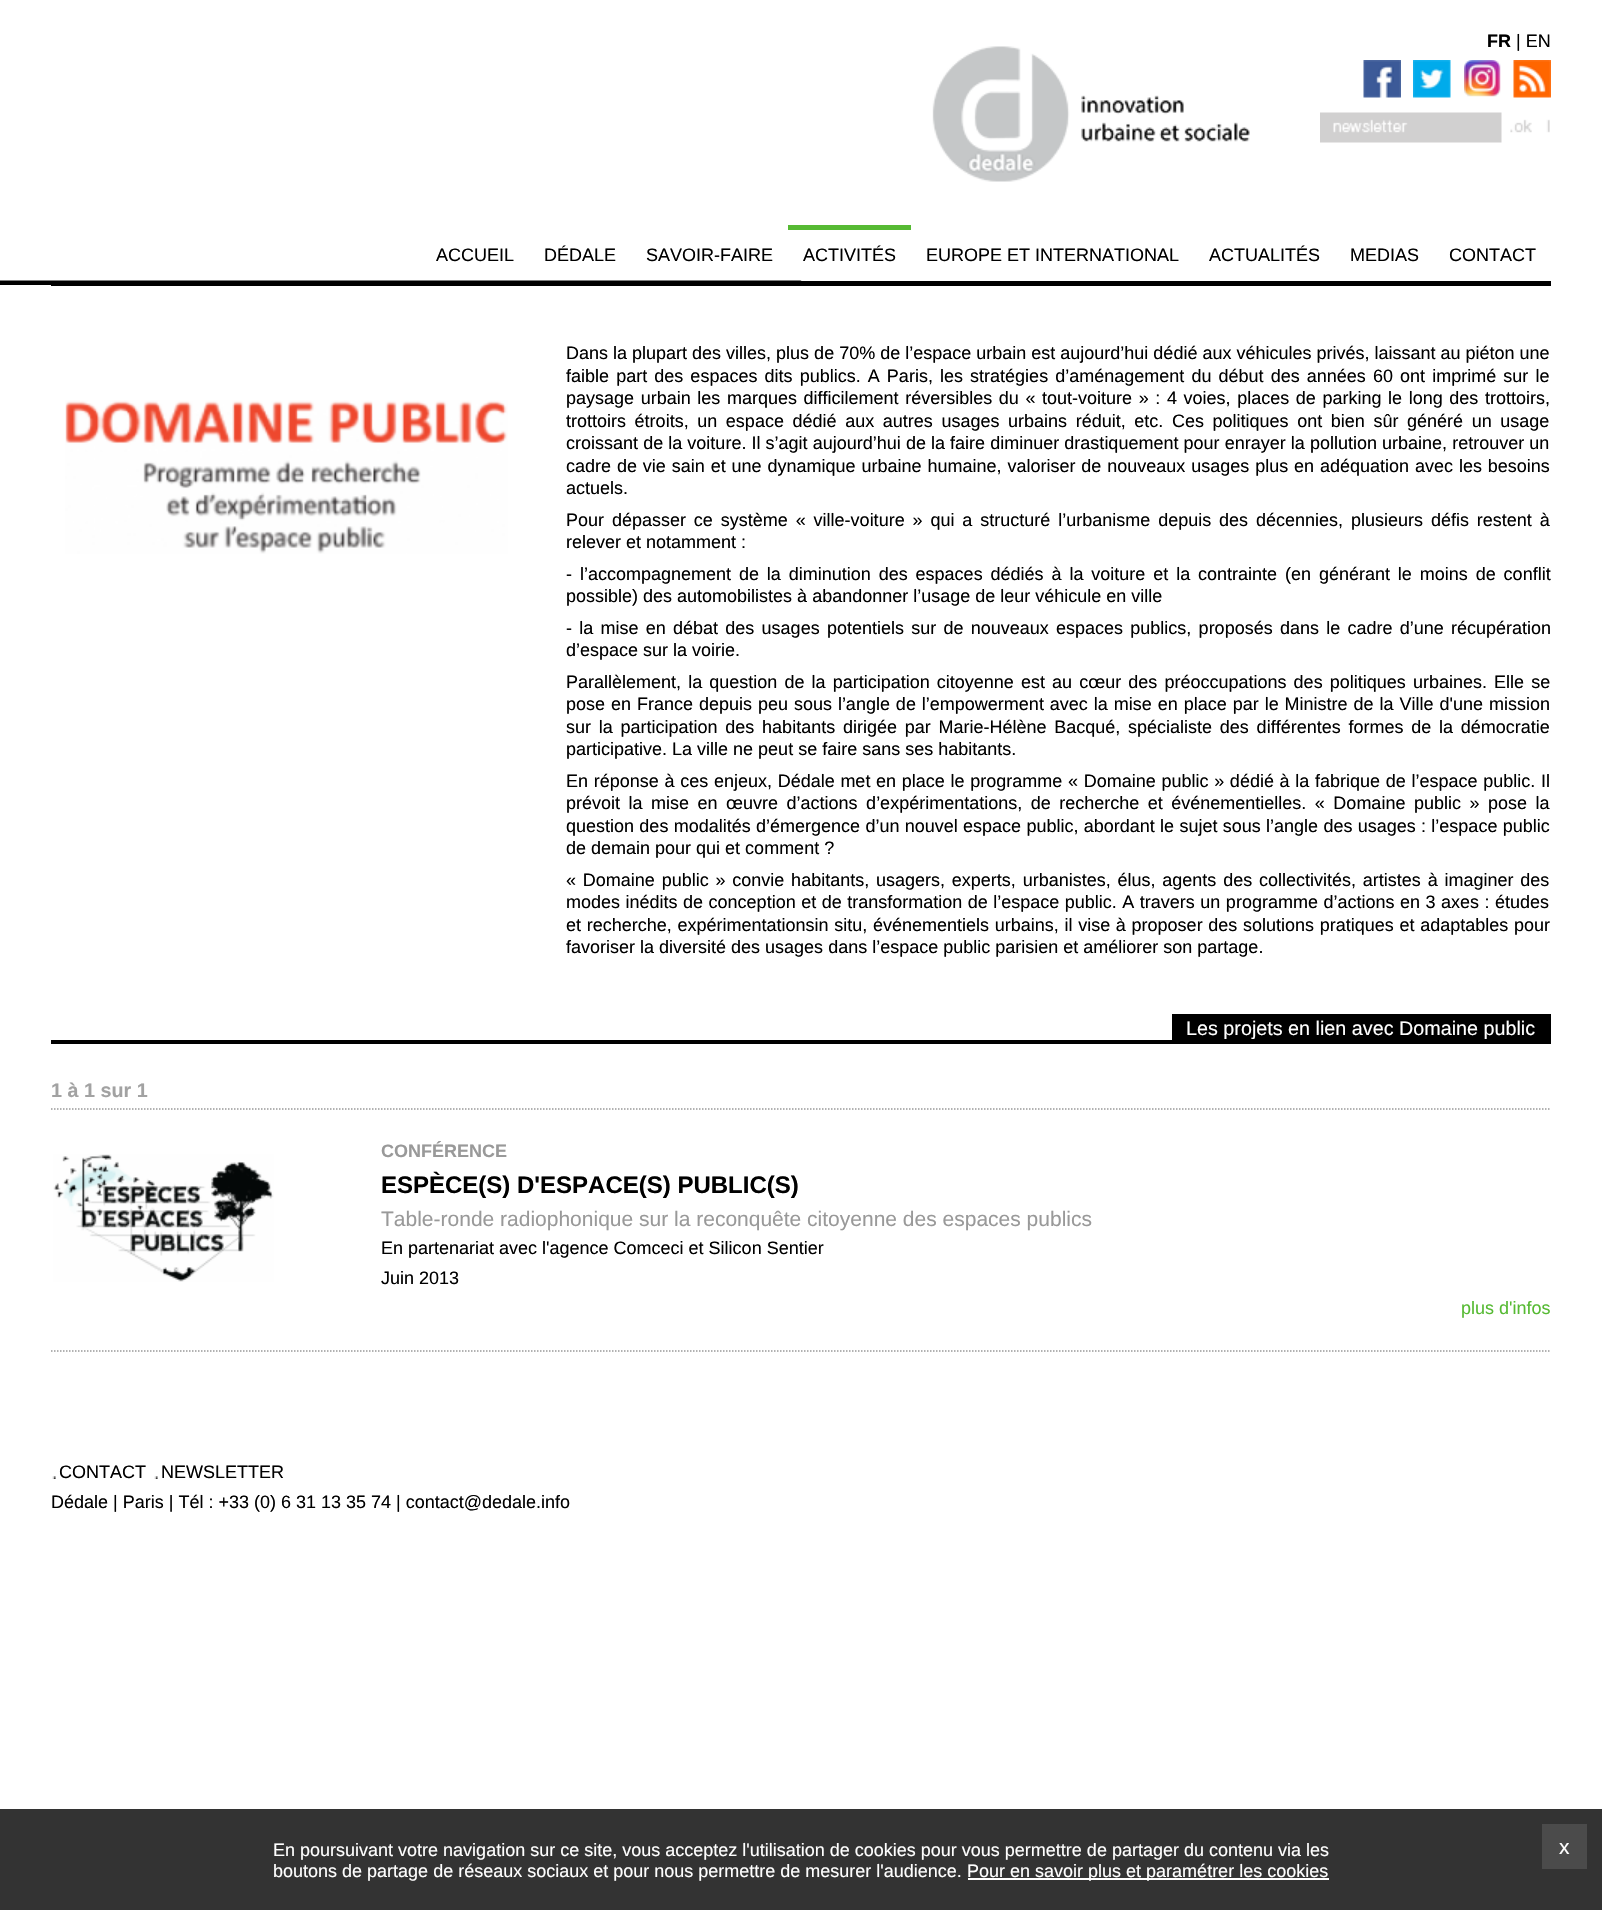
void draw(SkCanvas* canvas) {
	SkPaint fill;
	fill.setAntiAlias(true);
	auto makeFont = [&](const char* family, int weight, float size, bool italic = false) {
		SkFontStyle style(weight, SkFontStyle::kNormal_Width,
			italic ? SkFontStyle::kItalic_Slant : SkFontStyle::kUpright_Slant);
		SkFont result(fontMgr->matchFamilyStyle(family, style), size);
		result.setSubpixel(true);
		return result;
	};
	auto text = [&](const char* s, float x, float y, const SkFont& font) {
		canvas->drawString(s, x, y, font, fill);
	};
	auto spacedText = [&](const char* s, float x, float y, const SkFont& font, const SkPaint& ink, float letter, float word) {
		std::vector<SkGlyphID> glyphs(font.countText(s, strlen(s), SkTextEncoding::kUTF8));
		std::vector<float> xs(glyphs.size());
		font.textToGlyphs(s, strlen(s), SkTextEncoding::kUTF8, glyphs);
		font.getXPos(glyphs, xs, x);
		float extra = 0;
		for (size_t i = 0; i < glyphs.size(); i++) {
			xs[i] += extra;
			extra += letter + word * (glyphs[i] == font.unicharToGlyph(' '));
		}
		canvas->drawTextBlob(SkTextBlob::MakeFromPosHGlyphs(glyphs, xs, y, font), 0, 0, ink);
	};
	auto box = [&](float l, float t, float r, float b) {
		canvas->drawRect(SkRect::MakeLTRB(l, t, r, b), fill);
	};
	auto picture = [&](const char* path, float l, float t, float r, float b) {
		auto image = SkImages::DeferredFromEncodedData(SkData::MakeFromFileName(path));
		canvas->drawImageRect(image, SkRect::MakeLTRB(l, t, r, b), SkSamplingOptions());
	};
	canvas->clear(0xFFFFFFFF);
	picture("image0.png", 0, 280, 802, 285);
	picture("image1.png", 932, 46, 1250, 182);
	picture("image2.png", 1363, 60, 1401, 98);
	picture("image3.png", 1413, 60, 1451, 98);
	picture("image4.png", 1464, 60, 1501, 97);
	picture("image5.png", 1513, 60, 1551, 98);
	picture("image6.png", 1320, 112, 1550, 143);
	fill.setColor(0xFF000000);
	box(51, 281, 1551, 286);
	fill.setColor(0xFF56BA33);
	box(788, 225, 911, 230);
	picture("image7.png", 65, 400, 508, 554);
	fill.setColor(0xFF000000);
	box(51, 1040, 1551, 1044);
	box(1172, 1014, 1551, 1040);
	fill.setStyle(SkPaint::kStroke_Style);
	fill.setStrokeWidth(1.5f);
	fill.setColor(0xFF999999);
	fill.setPathEffect(SkDashPathEffect::Make({{1.5f, 1.5f}}, 0));
	canvas->drawPath(SkPathBuilder().moveTo(51, 1109).lineTo(1551, 1109).detach(), fill);
	fill.setPathEffect(nullptr);
	picture("image8.png", 53, 1154, 274, 1282);
	fill.setPathEffect(SkDashPathEffect::Make({{1.5f, 1.5f}}, 0));
	canvas->drawPath(SkPathBuilder().moveTo(51, 1351).lineTo(1551, 1351).detach(), fill);
	fill.setPathEffect(nullptr);
	picture("image9.png", 52, 1476, 56, 1479);
	picture("image9.png", 154, 1476, 158, 1479);
	fill.setStyle(SkPaint::kFill_Style);
	fill.setColor(0xFF333333);
	box(0, 1809, 1602, 1910);
	fill.setColor(0xFFFFFFFF);
	box(968, 1878, 1329, 1880);
	fill.setColor(0xFF4B4B4B);
	box(1542, 1824, 1587, 1869);
	auto font1 = makeFont("Liberation Sans", 700, 18);
	fill.setColor(0xFF000000);
	text("FR", 1487, 47, font1);
	auto font2 = makeFont("Liberation Sans", 400, 18);
	text("| EN", 1516, 47, font2);
	text("ACCUEIL", 436, 261, font2);
	text("DÉDALE", 544, 261, font2);
	text("SAVOIR-FAIRE", 646, 261, font2);
	text("ACTIVITÉS", 803, 261, font2);
	text("EUROPE ET INTERNATIONAL", 926, 261, font2);
	text("ACTUALITÉS", 1209, 261, font2);
	text("MEDIAS", 1350, 261, font2);
	text("CONTACT", 1449, 261, font2);
	text("Dans la plupart des villes, plus de 70% de l’espace urbain est aujourd’hui dédié aux véhicules privés, laissant au piéton une", 566, 359, font2);
	spacedText("faible part des espaces dits publics. A Paris, les stratégies d’aménagement du début des années 60 ont imprimé sur le", 566, 382, font2, fill, 0, 2.1f);
	spacedText("paysage urbain les marques difficilement réversibles du « tout-voiture » : 4 voies, places de parking le long des trottoirs,", 566, 404, font2, fill, 0, 1.6f);
	spacedText("trottoirs étroits, un espace dédié aux autres usages urbains réduit, etc. Ces politiques ont bien sûr généré un usage", 566, 427, font2, fill, 0, 3.6f);
	spacedText("croissant de la voiture. Il s’agit aujourd’hui de la faire diminuer drastiquement pour enrayer la pollution urbaine, retrouver un", 566, 449, font2, fill, 0, 0.1f);
	spacedText("cadre de vie sain et une dynamique urbaine humaine, valoriser de nouveaux usages plus en adéquation avec les besoins", 566, 472, font2, fill, 0, 0.9f);
	text("actuels.", 566, 494, font2);
	spacedText("Pour dépasser ce système « ville-voiture » qui a structuré l’urbanisme depuis des décennies, plusieurs défis restent à", 566, 526, font2, fill, 0, 2.9f);
	text("relever et notamment :", 566, 548, font2);
	spacedText("- l’accompagnement de la diminution des espaces dédiés à la voiture et la contrainte (en générant le moins de conflit", 566, 580, font2, fill, 0, 2.9f);
	text("possible) des automobilistes à abandonner l’usage de leur véhicule en ville", 566, 602, font2);
	spacedText("- la mise en débat des usages potentiels sur de nouveaux espaces publics, proposés dans le cadre d’une récupération", 566, 634, font2, fill, 0, 2.25f);
	text("d’espace sur la voirie.", 566, 656, font2);
	spacedText("Parallèlement, la question de la participation citoyenne est au cœur des préoccupations des politiques urbaines. Elle se", 566, 688, font2, fill, 0, 2.1f);
	spacedText("pose en France depuis peu sous l’angle de l’empowerment avec la mise en place par le Ministre de la Ville d'une mission", 566, 710, font2, fill, 0, 0.95f);
	spacedText("sur la participation des habitants dirigée par Marie-Hélène Bacqué, spécialiste des différentes formes de la démocratie", 566, 733, font2, fill, 0, 2.75f);
	text("participative. La ville ne peut se faire sans ses habitants.", 566, 755, font2);
	spacedText("En réponse à ces enjeux, Dédale met en place le programme « Domaine public » dédié à la fabrique de l’espace public. Il", 566, 787, font2, fill, 0, 0.7f);
	spacedText("prévoit la mise en œuvre d’actions d’expérimentations, de recherche et événementielles. « Domaine public » pose la", 566, 809, font2, fill, 0, 3.5f);
	spacedText("question des modalités d’émergence d’un nouvel espace public, abordant le sujet sous l’angle des usages : l’espace public", 566, 832, font2, fill, 0, 0.3f);
	text("de demain pour qui et comment ?", 566, 854, font2);
	spacedText("« Domaine public » convie habitants, usagers, experts, urbanistes, élus, agents des collectivités, artistes à imaginer des", 566, 886, font2, fill, 0, 1.8f);
	spacedText("modes inédits de conception et de transformation de l’espace public. A travers un programme d’actions en 3 axes : études", 566, 908, font2, fill, 0, 0.5f);
	spacedText("et recherche, expérimentationsin situ, événementiels urbains, il vise à proposer des solutions pratiques et adaptables pour", 566, 931, font2, fill, 0, 0.7f);
	text("favoriser la diversité des usages dans l’espace public parisien et améliorer son partage.", 566, 953, font2);
	auto font3 = makeFont("Liberation Sans", 400, 19.75f);
	fill.setColor(0xFFFFFFFF);
	text("Les projets en lien avec Domaine public", 1186, 1035, font3);
	auto font4 = makeFont("Liberation Sans", 700, 19.75f);
	fill.setColor(0xFFA2A2A2);
	text("1 à 1 sur 1", 51, 1097, font4);
	fill.setColor(0xFF999999);
	text("CONFÉRENCE", 381, 1157, font1);
	auto font5 = makeFont("Liberation Sans", 700, 24);
	fill.setColor(0xFF000000);
	text("ESPÈCE(S) D'ESPACE(S) PUBLIC(S)", 381, 1193, font5);
	auto font6 = makeFont("Liberation Sans", 400, 21);
	fill.setColor(0xFF999999);
	text("Table-ronde radiophonique sur la reconquête citoyenne des espaces publics", 381, 1226, font6);
	fill.setColor(0xFF000000);
	text("En partenariat avec l'agence Comceci et Silicon Sentier", 381, 1254, font2);
	text("Juin 2013", 381, 1284, font2);
	fill.setColor(0xFF56BA33);
	text("plus d'infos", 1461, 1314, font2);
	fill.setColor(0xFF000000);
	text("CONTACT", 59, 1478, font2);
	text("NEWSLETTER", 161, 1478, font2);
	text("Dédale | Paris | Tél : +33 (0) 6 31 13 35 74 | contact@dedale.info", 51, 1508, font2);
	fill.setColor(0xFFFFFFFF);
	text("En poursuivant votre navigation sur ce site, vous acceptez l'utilisation de cookies pour vous permettre de partager du contenu via les", 273, 1856, font2);
	text("boutons de partage de réseaux sociaux et pour nous permettre de mesurer l'audience.", 273, 1877, font2);
	text("Pour en savoir plus et paramétrer les cookies", 967, 1877, font2);
	text("x", 1559, 1854, font6);
}
